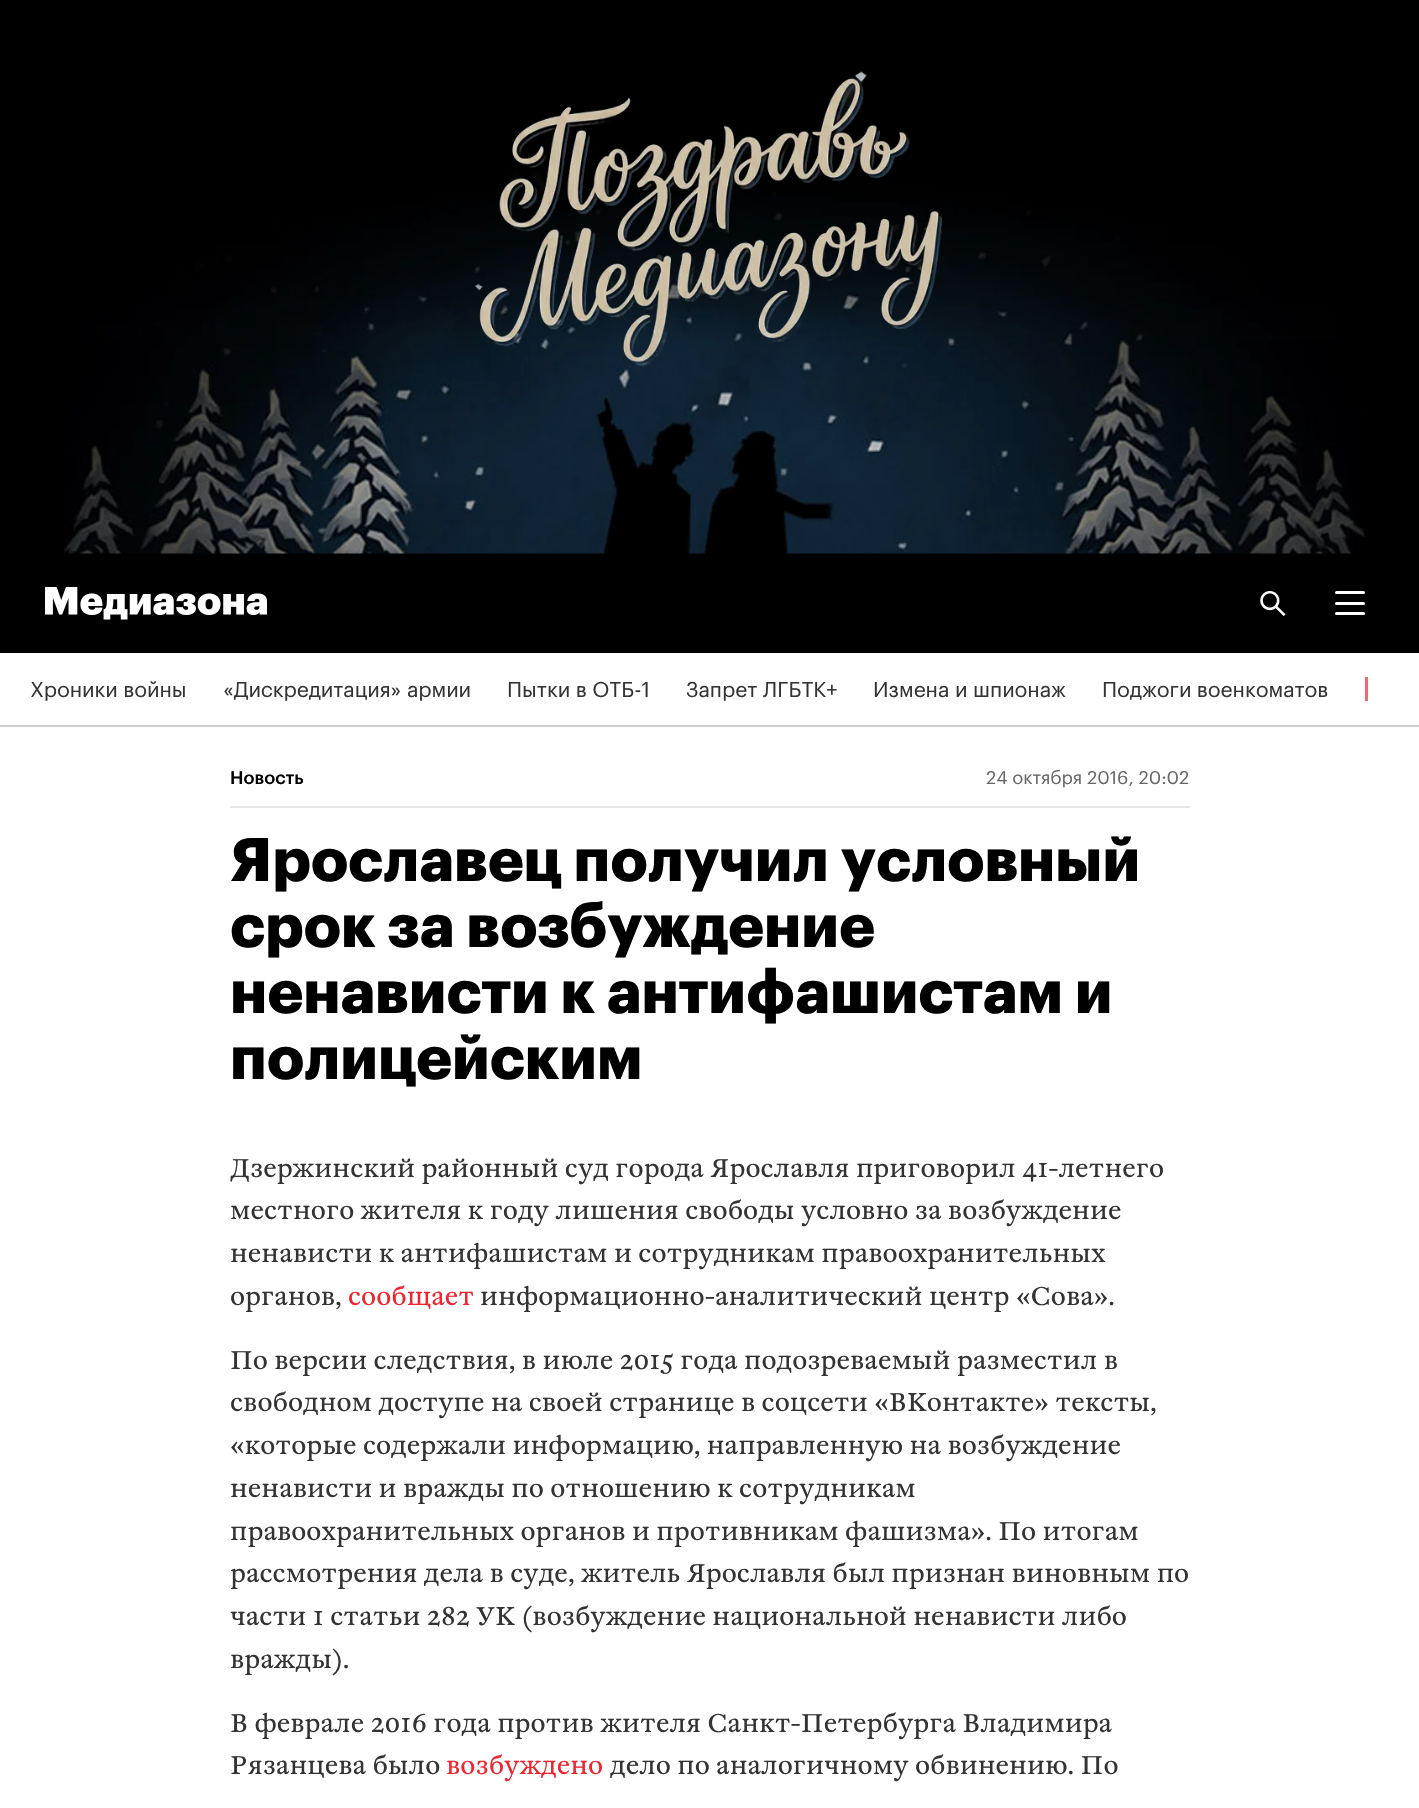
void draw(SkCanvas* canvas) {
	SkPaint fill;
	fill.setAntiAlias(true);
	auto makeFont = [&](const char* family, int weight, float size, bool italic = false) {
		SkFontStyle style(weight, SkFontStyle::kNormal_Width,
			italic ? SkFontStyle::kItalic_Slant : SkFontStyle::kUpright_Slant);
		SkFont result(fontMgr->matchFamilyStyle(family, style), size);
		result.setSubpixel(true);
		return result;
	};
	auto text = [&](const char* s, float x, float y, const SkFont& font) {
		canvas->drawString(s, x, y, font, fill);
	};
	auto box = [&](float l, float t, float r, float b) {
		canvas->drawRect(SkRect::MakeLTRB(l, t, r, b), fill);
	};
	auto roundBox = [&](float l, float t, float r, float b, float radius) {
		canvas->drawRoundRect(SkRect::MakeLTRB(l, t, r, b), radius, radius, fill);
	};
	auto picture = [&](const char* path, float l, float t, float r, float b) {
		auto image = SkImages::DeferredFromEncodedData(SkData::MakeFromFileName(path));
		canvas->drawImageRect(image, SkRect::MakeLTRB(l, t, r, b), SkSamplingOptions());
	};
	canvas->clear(0xFF000000);
	picture("image0.png", 63, 67, 1366, 554);
	fill.setColor(0xFFFFFFFF);
	box(0, 653, 1419, 725);
	picture("image1.png", 45, 587, 78, 615);
	picture("image2.png", 80, 593, 267, 620);
	picture("image3.png", 1260, 591, 1286, 616);
	roundBox(1335, 591, 1365, 594, 1.5f);
	roundBox(1335, 602, 1365, 605, 1.5f);
	roundBox(1335, 612, 1365, 615, 1.5f);
	fill.setColor(0xFFCCCCCC);
	box(0, 725, 1419, 727);
	fill.setColor(0xFFEF2530);
	box(1365, 677, 1368, 701);
	{
		const SkColor colors[] = {0x00FFFFFF, 0xFFFFFFFF};
		const float stops[] = {0, 1};
		const SkPoint ends[] = {{1344, 689}, {1419, 689}};
		fill.setShader(SkGradientShader::MakeLinear(ends, colors, stops, 2, SkTileMode::kClamp));
		fill.setAlpha(255);
	}
	box(1365, 677, 1368, 701);
	fill.setShader(nullptr);
	fill.setColor(0xFFFFFFFF);
	box(0, 727, 1419, 1808);
	fill.setColor(0xFFE5E5E5);
	box(230, 806, 1190, 808);
	auto font1 = makeFont("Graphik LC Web", 400, 21);
	fill.setColor(0xFF333333);
	text("Хроники войны", 30, 697, font1);
	text("«Дискредитация» армии", 223, 697, font1);
	text("Пытки в ОТБ-1", 507, 697, font1);
	text("Запрет ЛГБТК+", 686, 697, font1);
	text("Измена и шпионаж", 873, 697, font1);
	text("Поджоги военкоматов", 1102, 697, font1);
	auto font2 = makeFont("Graphik LC Web", 500, 18);
	fill.setColor(0xFF000000);
	text("Новость", 230, 784, font2);
	auto font3 = makeFont("Graphik LC Web", 400, 18);
	fill.setColor(0xFF666666);
	text("24 октября 2016, 20:02", 986, 784, font3);
	auto font4 = makeFont("Graphik LC Web", 700, 60);
	fill.setColor(0xFF000000);
	text("Ярославец получил условный", 230, 881, font4);
	text("срок за возбуждение", 230, 947, font4);
	text("ненависти к антифашистам и", 230, 1013, font4);
	text("полицейским", 230, 1079, font4);
	auto font5 = makeFont("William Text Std", 400, 25.5f);
	fill.setColor(0xFF333333);
	text("Дзержинский районный суд города Ярославля приговорил 41-летнего", 230, 1177, font5);
	text("местного жителя к году лишения свободы условно за возбуждение", 230, 1219, font5);
	text("ненависти к антифашистам и сотрудникам правоохранительных", 230, 1262, font5);
	text("органов,", 230, 1305, font5);
	fill.setColor(0xFFEF2530);
	text("сообщает", 348, 1305, font5);
	fill.setColor(0xFF333333);
	text("информационно-аналитический центр «Сова».", 480, 1305, font5);
	text("По версии следствия, в июле 2015 года подозреваемый разместил в", 230, 1369, font5);
	text("свободном доступе на своей странице в соцсети «ВКонтакте» тексты,", 230, 1411, font5);
	text("«которые содержали информацию, направленную на возбуждение", 230, 1454, font5);
	text("ненависти и вражды по отношению к сотрудникам", 230, 1497, font5);
	text("правоохранительных органов и противникам фашизма». По итогам", 230, 1540, font5);
	text("рассмотрения дела в суде, житель Ярославля был признан виновным по", 230, 1582, font5);
	text("части 1 статьи 282 УК (возбуждение национальной ненависти либо", 230, 1625, font5);
	text("вражды).", 230, 1668, font5);
	text("В феврале 2016 года против жителя Санкт-Петербурга Владимира", 230, 1732, font5);
	text("Рязанцева было", 230, 1774, font5);
	fill.setColor(0xFFEF2530);
	text("возбуждено", 446, 1774, font5);
	fill.setColor(0xFF333333);
	text("дело по аналогичному обвинению. По", 610, 1774, font5);
}
